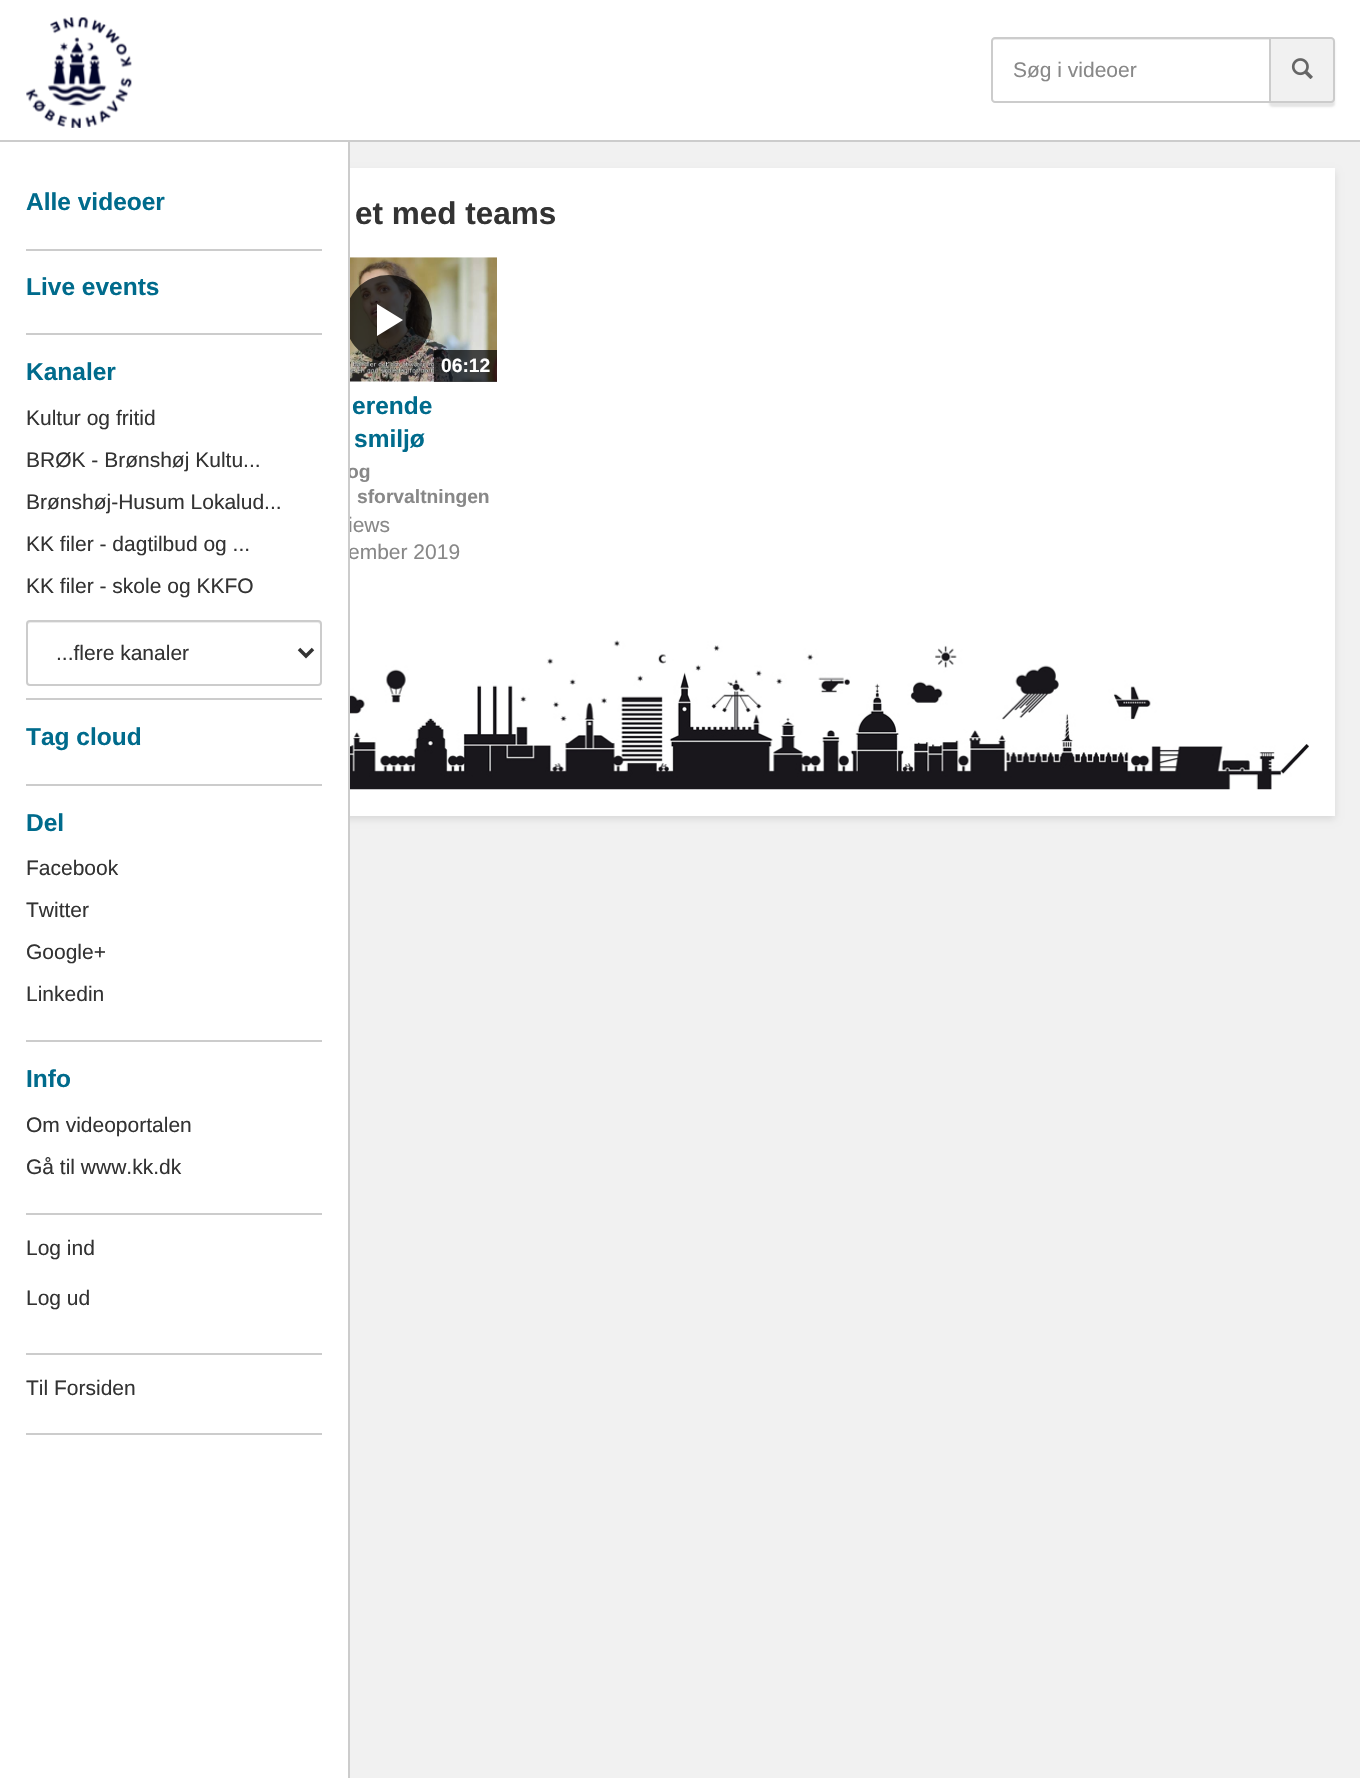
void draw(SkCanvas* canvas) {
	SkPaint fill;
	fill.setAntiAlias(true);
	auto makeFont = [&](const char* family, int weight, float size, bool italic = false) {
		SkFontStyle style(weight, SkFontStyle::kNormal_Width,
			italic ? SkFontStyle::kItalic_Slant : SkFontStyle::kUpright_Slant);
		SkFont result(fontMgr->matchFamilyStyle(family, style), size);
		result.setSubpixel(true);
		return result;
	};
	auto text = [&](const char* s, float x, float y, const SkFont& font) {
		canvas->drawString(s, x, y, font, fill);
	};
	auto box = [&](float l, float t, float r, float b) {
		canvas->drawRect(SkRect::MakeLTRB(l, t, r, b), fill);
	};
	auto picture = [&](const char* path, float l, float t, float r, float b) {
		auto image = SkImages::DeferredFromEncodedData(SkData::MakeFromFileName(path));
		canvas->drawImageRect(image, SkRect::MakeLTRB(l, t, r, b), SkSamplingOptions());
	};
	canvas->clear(0xFFF1F1F1);
	fill.setColor(0xFFFFFFFF);
	box(0, 0, 1360, 140);
	fill.setColor(0xFFCCCCCC);
	box(0, 140, 1360, 142);
	picture("image0.png", 26, 17, 132, 128);
	fill.setColor(0x1A000000);
	fill.setMaskFilter(SkMaskFilter::MakeBlur(kNormal_SkBlurStyle, 1));
	canvas->drawRoundRect(SkRect::MakeLTRB(1269, 40, 1335, 107), 4, 4, fill);
	fill.setMaskFilter(nullptr);
	fill.setColor(0xFFF1F1F1);
	canvas->drawPath(SkPathBuilder().moveTo(1270, 38).lineTo(1331, 38).cubicTo(1332.5f, 38, 1334, 39.5f, 1334, 41).lineTo(1334, 99).cubicTo(1334, 100.5f, 1332.5f, 102, 1331, 102).lineTo(1270, 102).close().detach(), fill);
	fill.setStyle(SkPaint::kStroke_Style);
	fill.setStrokeWidth(2);
	fill.setColor(0xFFCCCCCC);
	canvas->drawPath(SkPathBuilder().moveTo(1270, 38).lineTo(1331, 38).cubicTo(1332.5f, 38, 1334, 39.5f, 1334, 41).lineTo(1334, 99).cubicTo(1334, 100.5f, 1332.5f, 102, 1331, 102).lineTo(1270, 102).close().detach(), fill);
	fill.setStyle(SkPaint::kFill_Style);
	fill.setColor(0xFFFFFFFF);
	canvas->drawPath(SkPathBuilder().moveTo(995, 37).lineTo(1271, 37).lineTo(1271, 103).lineTo(995, 103).cubicTo(993, 103, 991, 101, 991, 99).lineTo(991, 41).cubicTo(991, 39, 993, 37, 995, 37).close().detach(), fill);
	fill.setColor(0xFFECECEC);
	canvas->drawPath(SkPathBuilder().moveTo(994, 40).lineTo(1269, 40).lineTo(1269, 39).lineTo(994, 39).cubicTo(992, 39, 992, 41, 992, 42).cubicTo(992, 41, 993, 40, 994, 40).close().detach(), fill);
	fill.setStyle(SkPaint::kStroke_Style);
	fill.setColor(0xFFCCCCCC);
	canvas->drawPath(SkPathBuilder().moveTo(995, 38).lineTo(1270, 38).lineTo(1270, 102).lineTo(995, 102).cubicTo(993.5f, 102, 992, 100.5f, 992, 99).lineTo(992, 41).cubicTo(992, 39.5f, 993.5f, 38, 995, 38).close().detach(), fill);
	picture("image1.png", 1291, 58, 1313, 79);
	fill.setStyle(SkPaint::kFill_Style);
	fill.setColor(0x1A000000);
	fill.setMaskFilter(SkMaskFilter::MakeBlur(kNormal_SkBlurStyle, 3.5f));
	canvas->drawRect(SkRect::MakeLTRB(254, 172, 1335, 819), fill);
	fill.setMaskFilter(nullptr);
	fill.setColor(0xFFFFFFFF);
	box(350, 168, 1335, 816);
	picture("image2.png", 350, 257, 497, 382);
	fill.setColor(0xB3000000);
	canvas->drawCircle(388.5f, 318.5f, 43.5f, fill);
	fill.setColor(0xFFFFFFFF);
	canvas->drawPath(SkPathBuilder().moveTo(377, 336).lineTo(403, 320).lineTo(377, 304).close().detach(), fill);
	fill.setColor(0xB3000000);
	box(434, 350, 497, 382);
	picture("image3.png", 350, 640, 1309, 790);
	auto font1 = makeFont("Liberation Sans", 400, 21);
	fill.setColor(0xFF888888);
	text("Søg i videoer", 1013, 77, font1);
	auto font2 = makeFont("Liberation Sans", 700, 31.5f);
	fill.setColor(0xFF333333);
	text("et med teams", 355, 224, font2);
	auto font3 = makeFont("Liberation Sans", 700, 19.25f);
	fill.setColor(0xFFFFFFFF);
	text("06:12", 441, 372, font3);
	auto font4 = makeFont("Liberation Sans", 700, 24.5f);
	fill.setColor(0xFF006B8C);
	text("erende", 352, 414, font4);
	text("smiljø", 354, 447, font4);
	fill.setColor(0xFF888888);
	text("og", 347, 478, font3);
	fill.setColor(0xFFFFFFFF);
	box(0, 142, 348, 1778);
	fill.setColor(0xFF333333);
	text("Til Forsiden", 26, 1395, font1);
	text("Log ud", 26, 1305, font1);
	text("Log ind", 26, 1255, font1);
	text("Gå til www.kk.dk", 26, 1174, font1);
	text("Om videoportalen", 26, 1132, font1);
	fill.setColor(0xFF006B8C);
	text("Info", 26, 1087, font4);
	fill.setColor(0xFF333333);
	text("Linkedin", 26, 1001, font1);
	text("Google+", 26, 959, font1);
	text("Twitter", 26, 917, font1);
	text("Facebook", 26, 875, font1);
	fill.setColor(0xFF006B8C);
	text("Del", 26, 831, font4);
	text("Tag cloud", 26, 745, font4);
	fill.setColor(0xFFECECEC);
	canvas->drawPath(SkPathBuilder().moveTo(30, 623).lineTo(318, 623).cubicTo(319, 623, 320, 624, 320, 625).cubicTo(320, 623, 320, 621, 318, 621).lineTo(29, 621).cubicTo(28, 622, 28, 624, 28, 625).cubicTo(28, 624, 29, 623, 30, 623).close().detach(), fill);
	fill.setStyle(SkPaint::kStroke_Style);
	fill.setColor(0xFFCCCCCC);
	canvas->drawRoundRect(SkRect::MakeLTRB(27, 621, 321, 685), 3, 3, fill);
	fill.setStyle(SkPaint::kFill_Style);
	fill.setColor(0xFF333333);
	text("...flere kanaler", 56, 660, font1);
	text("KK filer - skole og KKFO", 26, 593, font1);
	text("KK filer - dagtilbud og ...", 26, 551, font1);
	text("Brønshøj-Husum Lokalud...", 26, 509, font1);
	text("BRØK - Brønshøj Kultu...", 26, 467, font1);
	text("Kultur og fritid", 26, 425, font1);
	fill.setColor(0xFF006B8C);
	text("Kanaler", 26, 380, font4);
	text("Live events", 26, 295, font4);
	text("Alle videoer", 26, 210, font4);
	fill.setColor(0xFFCCCCCC);
	box(26, 1433, 322, 1435);
	box(26, 1353, 322, 1355);
	box(26, 1213, 322, 1215);
	box(26, 1040, 322, 1042);
	box(26, 784, 322, 786);
	fill.setStyle(SkPaint::kStroke_Style);
	fill.setStrokeWidth(3.5f);
	fill.setColor(0xFF333333);
	canvas->drawPath(SkPathBuilder().moveTo(299, 649).lineTo(306, 656).lineTo(313, 649).detach(), fill);
	fill.setStyle(SkPaint::kFill_Style);
	fill.setColor(0xFFCCCCCC);
	box(26, 698, 322, 700);
	box(26, 333, 322, 335);
	box(26, 249, 322, 251);
	fill.setColor(0xFF888888);
	text("sforvaltningen", 357, 503, font3);
	text("iews", 348, 532, font1);
	text("ember 2019", 348, 559, font1);
	fill.setColor(0xFFCCCCCC);
	box(348, 142, 350, 1778);
}
